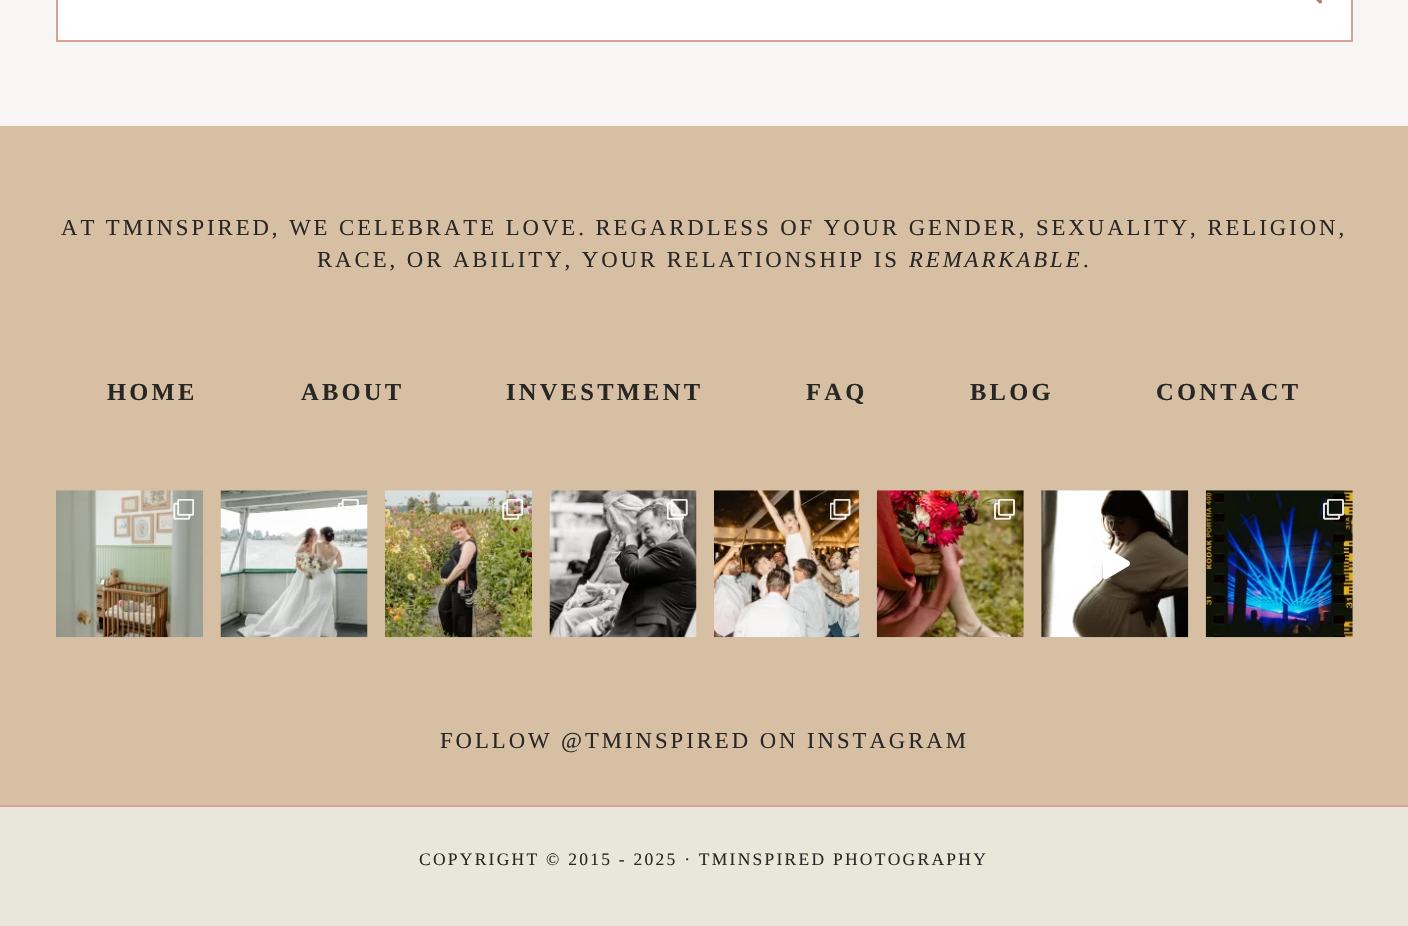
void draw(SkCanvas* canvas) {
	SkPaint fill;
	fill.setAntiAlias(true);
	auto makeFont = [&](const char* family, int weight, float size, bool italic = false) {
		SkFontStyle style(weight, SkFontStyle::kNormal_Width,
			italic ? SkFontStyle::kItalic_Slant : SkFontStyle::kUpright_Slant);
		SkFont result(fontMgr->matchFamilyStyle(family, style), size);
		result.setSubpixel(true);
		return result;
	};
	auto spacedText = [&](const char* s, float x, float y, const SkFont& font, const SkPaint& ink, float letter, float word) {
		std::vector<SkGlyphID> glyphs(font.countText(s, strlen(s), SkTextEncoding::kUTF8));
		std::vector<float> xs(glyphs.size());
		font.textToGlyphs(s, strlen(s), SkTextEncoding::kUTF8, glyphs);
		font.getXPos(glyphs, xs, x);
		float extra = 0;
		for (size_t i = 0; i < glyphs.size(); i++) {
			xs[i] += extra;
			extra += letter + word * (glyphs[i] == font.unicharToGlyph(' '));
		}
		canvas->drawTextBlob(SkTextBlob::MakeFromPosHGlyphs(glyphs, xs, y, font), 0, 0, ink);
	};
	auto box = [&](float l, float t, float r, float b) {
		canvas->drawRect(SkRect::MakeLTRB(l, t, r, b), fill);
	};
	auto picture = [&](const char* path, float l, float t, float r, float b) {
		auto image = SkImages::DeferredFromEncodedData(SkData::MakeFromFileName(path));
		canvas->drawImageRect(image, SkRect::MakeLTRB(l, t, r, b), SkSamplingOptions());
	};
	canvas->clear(0xFFF7F6F4);
	fill.setColor(0xFFFFFFFF);
	canvas->drawRect(SkRect::MakeLTRB(57, -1, 1352, 41), fill);
	fill.setStyle(SkPaint::kStroke_Style);
	fill.setStrokeWidth(2);
	fill.setColor(0xFFDBA095);
	canvas->drawRect(SkRect::MakeLTRB(57, -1, 1352, 41), fill);
	picture("image0.png", 1316, 0, 1322, 4);
	fill.setStyle(SkPaint::kFill_Style);
	fill.setColor(0xFFD6BFA3);
	box(0, 126, 1408, 805);
	picture("image1.png", 56, 490, 203, 638);
	picture("image2.png", 173, 499, 194, 520);
	picture("image3.png", 220, 490, 368, 638);
	picture("image4.png", 338, 499, 359, 513);
	picture("image5.png", 385, 490, 532, 638);
	picture("image6.png", 502, 499, 523, 520);
	picture("image7.png", 549, 490, 697, 638);
	picture("image8.png", 667, 499, 688, 520);
	picture("image9.png", 714, 490, 860, 638);
	picture("image10.png", 830, 499, 851, 520);
	picture("image11.png", 876, 490, 1024, 638);
	picture("image12.png", 994, 499, 1015, 520);
	picture("image13.png", 1041, 490, 1189, 638);
	picture("image14.png", 1103, 548, 1131, 579);
	picture("image15.png", 1205, 490, 1353, 638);
	picture("image16.png", 1323, 499, 1344, 520);
	fill.setColor(0xFFE9E7D9);
	box(0, 807, 1408, 926);
	fill.setColor(0xFFDBA095);
	box(0, 805, 1408, 807);
	auto font1 = makeFont("Liberation Serif", 400, 22.75f);
	fill.setColor(0xFF292725);
	spacedText("AT TMINSPIRED, WE CELEBRATE LOVE. REGARDLESS OF YOUR GENDER, SEXUALITY, RELIGION,", 61, 235, font1, fill, 2.95f, 0);
	spacedText("RACE, OR ABILITY, YOUR RELATIONSHIP IS", 317, 267, font1, fill, 2.95f, 0);
	auto font2 = makeFont("Liberation Serif", 400, 22.75f, true);
	spacedText("REMARKABLE", 909, 267, font2, fill, 2.95f, 0);
	spacedText(".", 1083, 267, font1, fill, 2.95f, 0);
	auto font3 = makeFont("Liberation Serif", 700, 24.5f);
	spacedText("HOME", 107, 400, font3, fill, 3.25f, 0);
	spacedText("ABOUT", 301, 400, font3, fill, 3.25f, 0);
	spacedText("INVESTMENT", 506, 400, font3, fill, 3.25f, 0);
	spacedText("FAQ", 806, 400, font3, fill, 3.25f, 0);
	spacedText("BLOG", 970, 400, font3, fill, 3.25f, 0);
	spacedText("CONTACT", 1156, 400, font3, fill, 3.25f, 0);
	spacedText("FOLLOW @TMINSPIRED ON INSTAGRAM", 440, 748, font1, fill, 2.95f, 0);
	auto font4 = makeFont("Liberation Serif", 400, 17.5f);
	spacedText("COPYRIGHT © 2015 - 2025 · TMINSPIRED PHOTOGRAPHY", 419, 865, font4, fill, 2.25f, 0);
}
